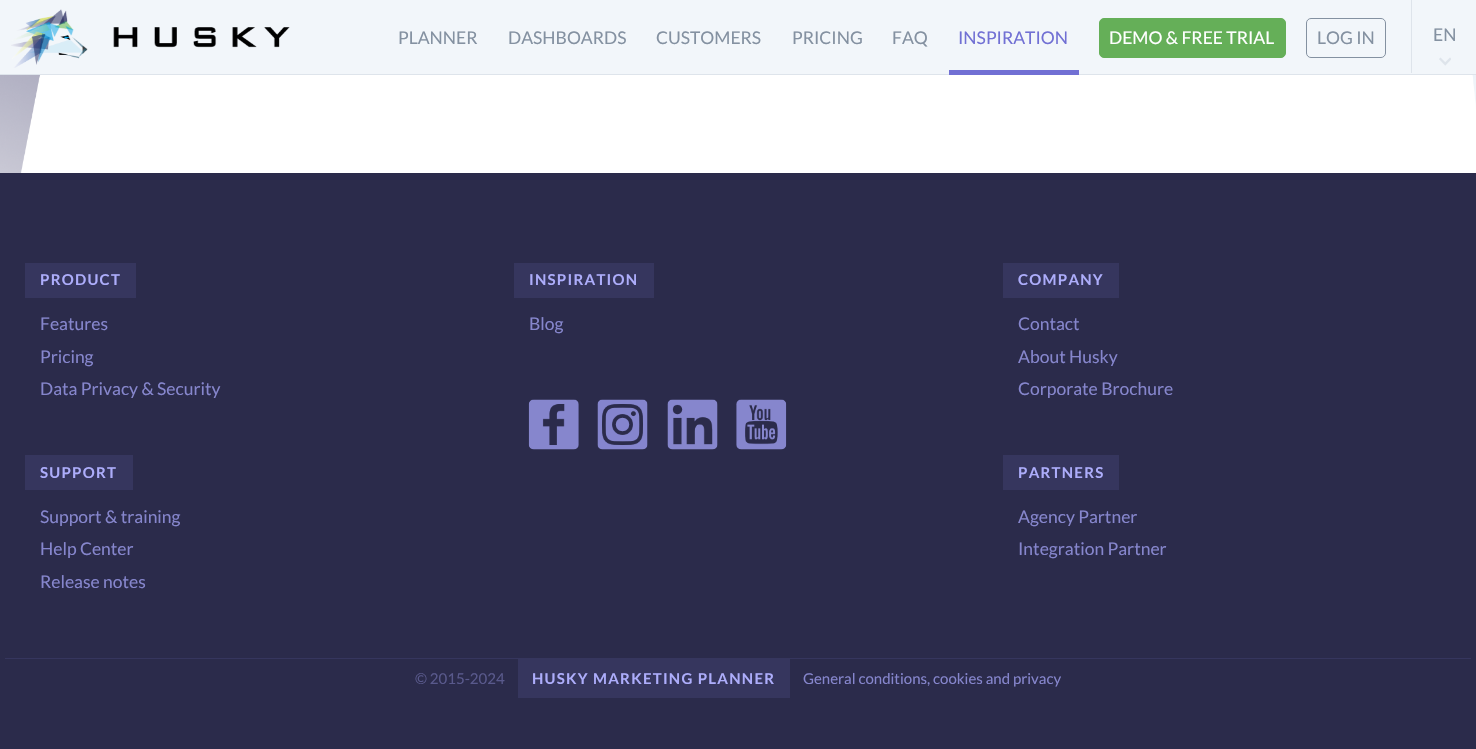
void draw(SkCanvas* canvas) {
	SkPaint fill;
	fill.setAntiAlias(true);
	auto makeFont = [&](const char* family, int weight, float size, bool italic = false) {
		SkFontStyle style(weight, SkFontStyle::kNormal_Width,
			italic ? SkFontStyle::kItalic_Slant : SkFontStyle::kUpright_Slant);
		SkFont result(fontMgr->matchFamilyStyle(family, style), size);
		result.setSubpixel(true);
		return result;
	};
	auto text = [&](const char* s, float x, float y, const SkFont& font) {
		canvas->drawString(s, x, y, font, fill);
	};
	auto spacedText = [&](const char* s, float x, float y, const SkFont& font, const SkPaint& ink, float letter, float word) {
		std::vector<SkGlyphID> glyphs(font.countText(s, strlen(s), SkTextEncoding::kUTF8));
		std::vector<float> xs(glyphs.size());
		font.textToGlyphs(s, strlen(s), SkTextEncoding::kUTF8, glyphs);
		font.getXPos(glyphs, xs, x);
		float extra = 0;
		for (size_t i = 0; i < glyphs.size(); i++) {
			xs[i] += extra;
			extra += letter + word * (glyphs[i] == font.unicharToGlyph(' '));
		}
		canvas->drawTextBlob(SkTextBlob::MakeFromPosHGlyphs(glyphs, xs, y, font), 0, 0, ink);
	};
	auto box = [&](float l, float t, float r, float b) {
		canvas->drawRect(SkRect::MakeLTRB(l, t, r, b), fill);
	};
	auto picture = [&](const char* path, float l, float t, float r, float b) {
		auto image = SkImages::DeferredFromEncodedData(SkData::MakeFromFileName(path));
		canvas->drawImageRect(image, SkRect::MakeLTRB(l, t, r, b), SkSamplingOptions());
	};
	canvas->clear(0xFFFFFFFF);
	picture("image0.png", 0, 75, 1476, 173);
	fill.setColor(0xFFF2F6FA);
	box(0, 0, 1476, 74);
	fill.setColor(0xFFDEE4EB);
	box(0, 74, 1476, 75);
	picture("image1.png", 11, 9, 290, 68);
	fill.setColor(0xFF7170D4);
	box(949, 70, 1079, 75);
	fill.setColor(0xFF65AF58);
	canvas->drawRoundRect(SkRect::MakeLTRB(1099.5f, 18.5f, 1285.5f, 57.5f), 4.5f, 4.5f, fill);
	fill.setStyle(SkPaint::kStroke_Style);
	fill.setStrokeWidth(1);
	canvas->drawRoundRect(SkRect::MakeLTRB(1099.5f, 18.5f, 1285.5f, 57.5f), 4.5f, 4.5f, fill);
	fill.setColor(0xFF8491A1);
	canvas->drawRoundRect(SkRect::MakeLTRB(1306.5f, 18.5f, 1385.5f, 57.5f), 4.5f, 4.5f, fill);
	fill.setStyle(SkPaint::kFill_Style);
	fill.setColor(0xFFDEE4EB);
	box(1411, 0, 1412, 73);
	picture("image2.png", 1439, 57, 1451, 66);
	fill.setColor(0xFF2B2B4B);
	box(0, 173, 1476, 749);
	fill.setColor(0xFF36365E);
	box(25, 263, 136, 298);
	box(25, 455, 133, 490);
	box(514, 263, 654, 298);
	picture("image3.png", 528, 399, 579, 450);
	picture("image4.png", 597, 399, 648, 450);
	picture("image5.png", 667, 399, 718, 450);
	picture("image6.png", 736, 399, 787, 450);
	box(1003, 263, 1119, 298);
	box(1003, 455, 1119, 490);
	box(5, 658, 1471, 659);
	box(518, 659, 790, 698);
	auto font1 = makeFont("Lato", 400, 17.5f);
	fill.setColor(0xFF8491A1);
	text("PLANNER", 398, 44, font1);
	text("DASHBOARDS", 508, 44, font1);
	text("CUSTOMERS", 656, 44, font1);
	text("PRICING", 792, 44, font1);
	text("FAQ", 892, 44, font1);
	fill.setColor(0xFF7170D4);
	text("INSPIRATION", 958, 44, font1);
	fill.setColor(0xFFFFFFFF);
	text("DEMO & FREE TRIAL", 1109, 44, font1);
	fill.setColor(0xFF8491A1);
	text("LOG IN", 1317, 44, font1);
	text("EN", 1433, 41, font1);
	auto font2 = makeFont("Lato", 700, 15);
	fill.setColor(0xFFADADFB);
	spacedText("PRODUCT", 40, 285, font2, fill, 1.25f, 0);
	fill.setColor(0xFF8686CD);
	text("Features", 40, 330, font1);
	text("Pricing", 40, 363, font1);
	text("Data Privacy & Security", 40, 395, font1);
	fill.setColor(0xFFADADFB);
	spacedText("SUPPORT", 40, 478, font2, fill, 1.25f, 0);
	fill.setColor(0xFF8686CD);
	text("Support & training", 40, 523, font1);
	text("Help Center", 40, 555, font1);
	text("Release notes", 40, 588, font1);
	fill.setColor(0xFFADADFB);
	spacedText("INSPIRATION", 529, 285, font2, fill, 1.25f, 0);
	fill.setColor(0xFF8686CD);
	text("Blog", 529, 330, font1);
	fill.setColor(0xFFADADFB);
	spacedText("COMPANY", 1018, 285, font2, fill, 1.25f, 0);
	fill.setColor(0xFF8686CD);
	text("Contact", 1018, 330, font1);
	text("About Husky", 1018, 363, font1);
	text("Corporate Brochure", 1018, 395, font1);
	fill.setColor(0xFFADADFB);
	spacedText("PARTNERS", 1018, 478, font2, fill, 1.25f, 0);
	fill.setColor(0xFF8686CD);
	text("Agency Partner", 1018, 523, font1);
	text("Integration Partner", 1018, 555, font1);
	auto font3 = makeFont("Lato", 400, 15);
	fill.setColor(0xFF59598C);
	text("© 2015-2024", 415, 684, font3);
	fill.setColor(0xFFADADFB);
	spacedText("HUSKY MARKETING PLANNER", 532, 684, font2, fill, 1.25f, 0);
	fill.setColor(0xFF8686CD);
	text("General conditions, cookies and privacy", 803, 684, font3);
}
